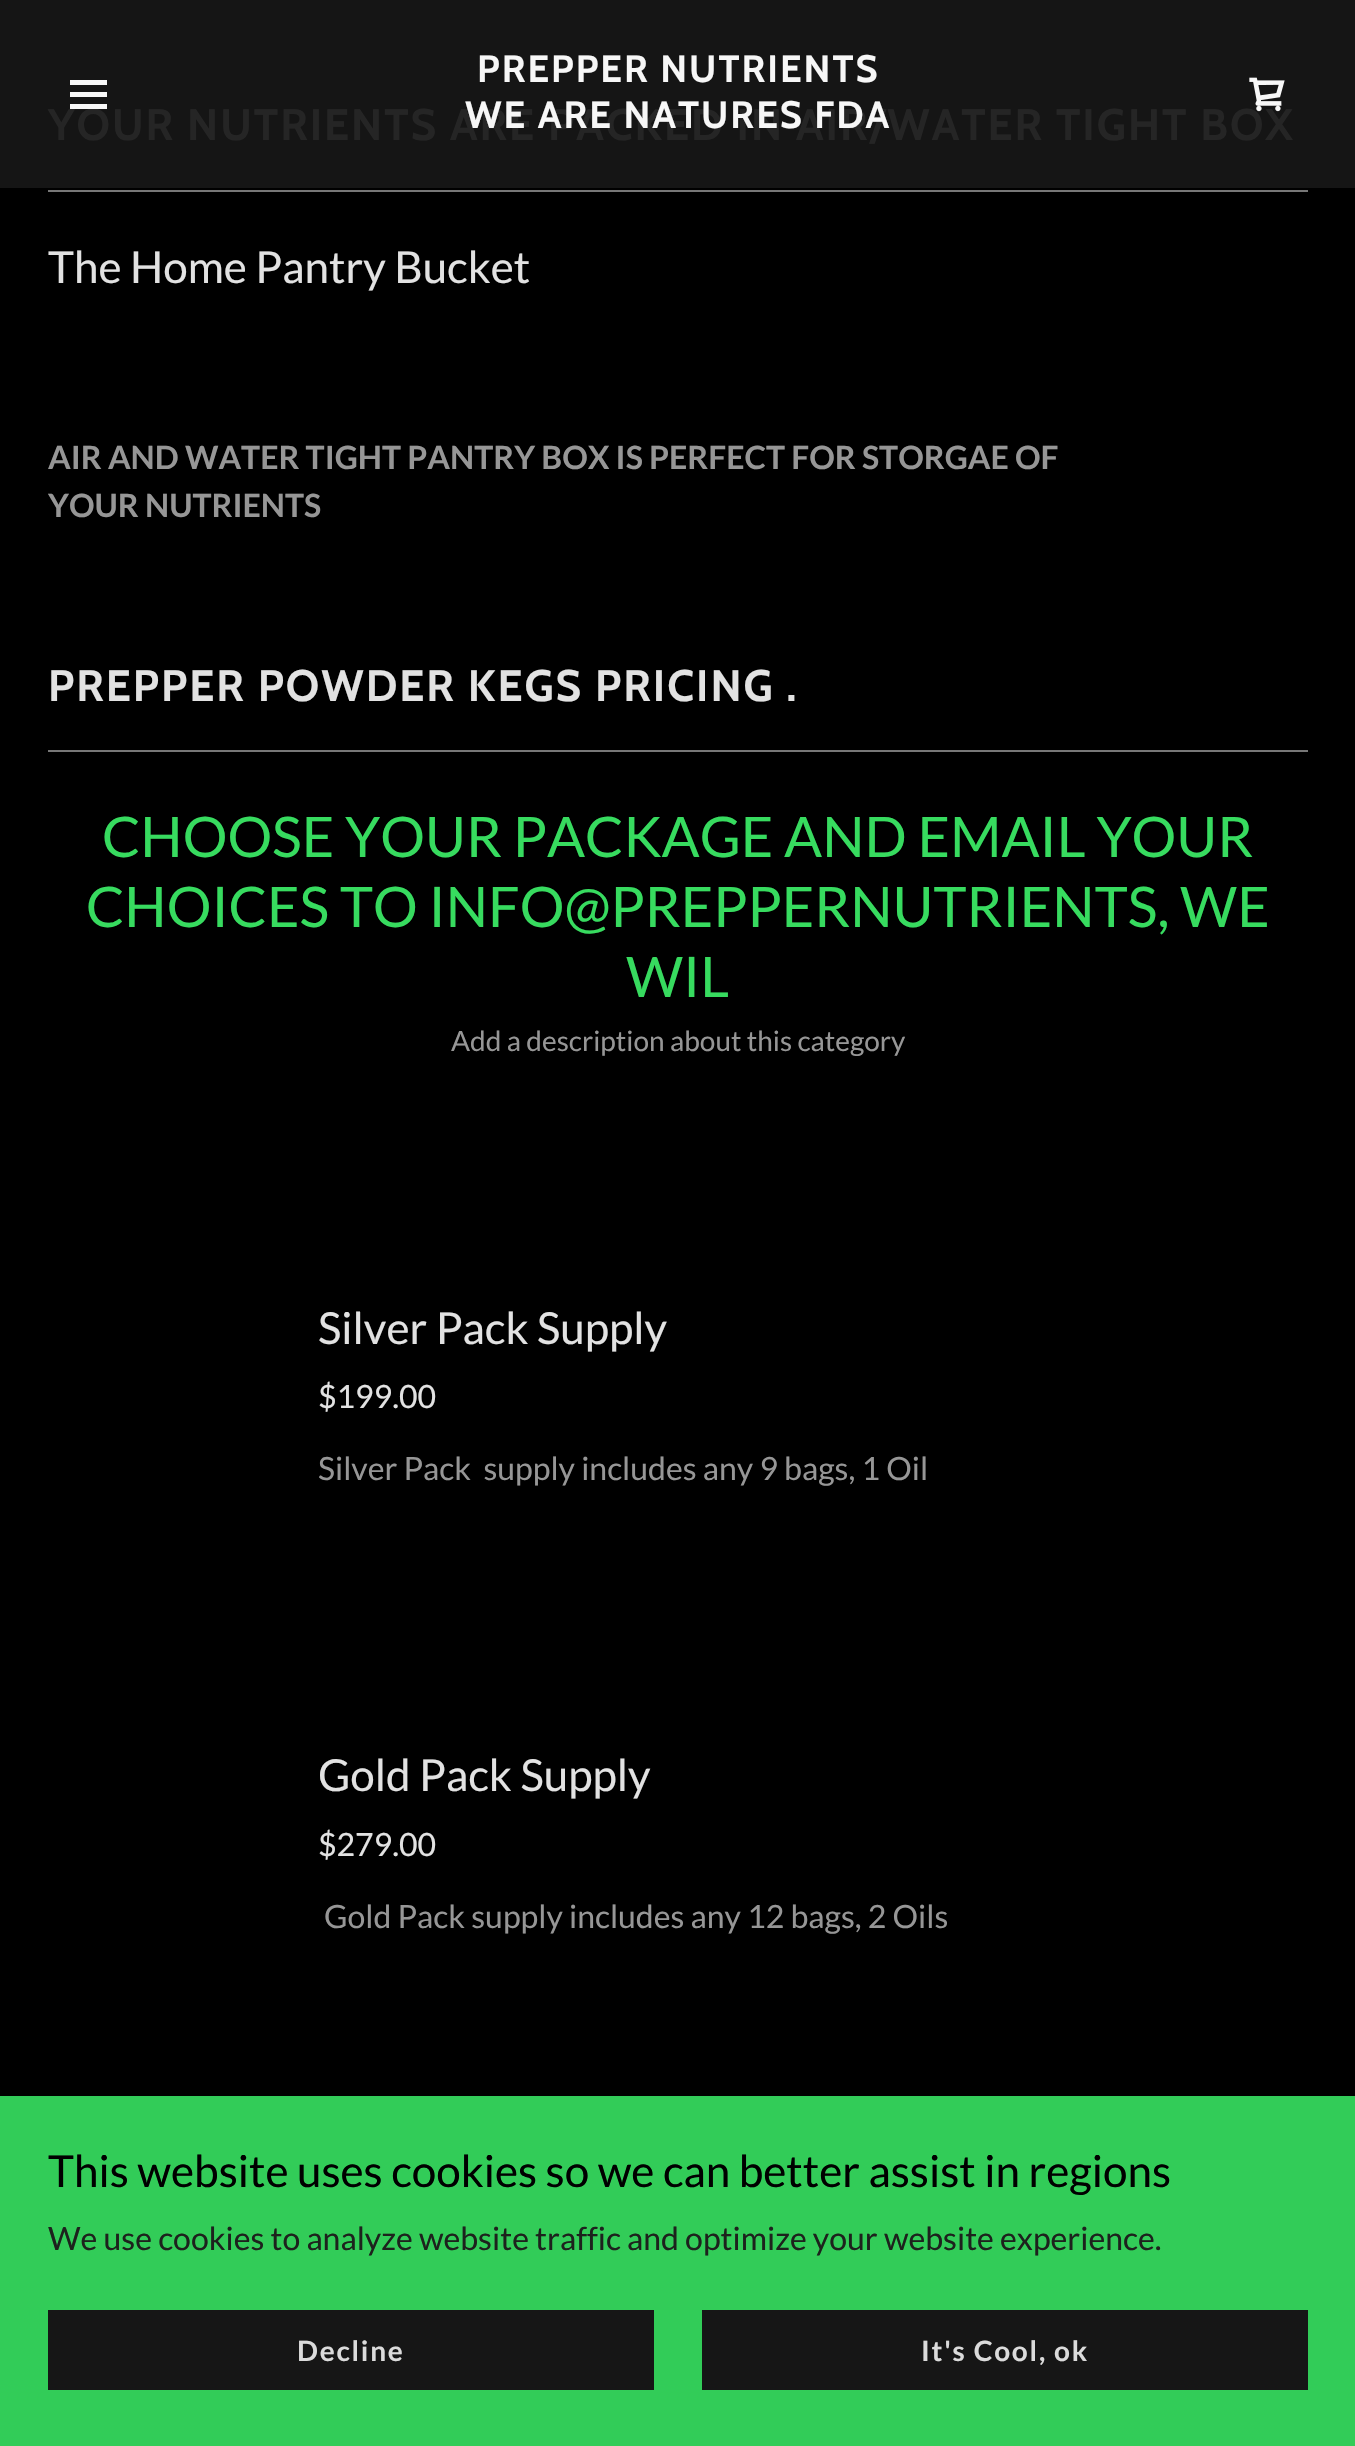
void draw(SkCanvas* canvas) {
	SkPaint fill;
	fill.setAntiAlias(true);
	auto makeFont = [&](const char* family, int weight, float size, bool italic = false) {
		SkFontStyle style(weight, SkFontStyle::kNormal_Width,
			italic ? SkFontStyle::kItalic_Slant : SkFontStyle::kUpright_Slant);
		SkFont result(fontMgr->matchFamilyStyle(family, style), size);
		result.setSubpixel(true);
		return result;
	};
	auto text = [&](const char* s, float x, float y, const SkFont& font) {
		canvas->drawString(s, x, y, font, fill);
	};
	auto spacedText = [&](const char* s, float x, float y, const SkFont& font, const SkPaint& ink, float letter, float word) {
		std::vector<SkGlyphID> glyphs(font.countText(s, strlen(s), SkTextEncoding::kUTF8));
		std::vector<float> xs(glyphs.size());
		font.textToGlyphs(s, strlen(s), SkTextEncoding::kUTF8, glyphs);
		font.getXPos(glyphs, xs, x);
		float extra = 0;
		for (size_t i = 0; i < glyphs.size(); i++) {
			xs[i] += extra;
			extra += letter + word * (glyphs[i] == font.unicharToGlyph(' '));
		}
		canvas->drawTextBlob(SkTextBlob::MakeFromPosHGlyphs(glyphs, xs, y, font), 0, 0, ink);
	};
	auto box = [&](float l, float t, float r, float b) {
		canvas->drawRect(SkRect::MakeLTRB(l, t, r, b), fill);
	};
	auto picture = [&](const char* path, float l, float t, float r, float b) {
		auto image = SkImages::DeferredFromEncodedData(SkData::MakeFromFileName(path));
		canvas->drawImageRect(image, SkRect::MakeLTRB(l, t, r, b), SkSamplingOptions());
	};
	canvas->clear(0xFF000000);
	fill.setColor(0xFF151515);
	box(0, 0, 1355, 188);
	fill.setColor(0xFFF7F7F7);
	box(70, 80, 107, 85);
	box(70, 92, 107, 97);
	fill.setColor(0xFF777777);
	box(48, 190, 1308, 192);
	box(48, 750, 1308, 752);
	fill.setColor(0xFF32CC58);
	box(0, 2096, 1355, 2446);
	fill.setColor(0xFF161616);
	box(48, 2310, 654, 2390);
	box(702, 2310, 1308, 2390);
	auto font1 = makeFont("Cabin", 700, 38);
	fill.setColor(0xFFF7F7F7);
	spacedText("PREPPER NUTRIENTS", 477, 82, font1, fill, 2, 0);
	auto font2 = makeFont("Cabin", 700, 44);
	fill.setColor(0xFF252525);
	spacedText("YOUR NUTRIENTS ARE PACKED IN AIR/WATER TIGHT BOX", 48, 140, font2, fill, 2, 0);
	fill.setColor(0xFFF7F7F7);
	spacedText("WE ARE NATURES FDA", 465, 128, font1, fill, 2, 0);
	picture("image0.png", 1249, 77, 1285, 112);
	box(70, 104, 107, 109);
	auto font3 = makeFont("Lato", 400, 44);
	fill.setColor(0xFFE2E2E2);
	text("The Home Pantry Bucket", 48, 283, font3);
	auto font4 = makeFont("Lato", 700, 32);
	fill.setColor(0xFF969696);
	text("AIR AND WATER TIGHT PANTRY BOX IS PERFECT FOR STORGAE OF", 48, 469, font4);
	text("YOUR NUTRIENTS", 48, 517, font4);
	fill.setColor(0xFFE2E2E2);
	spacedText("PREPPER POWDER KEGS PRICING .", 48, 701, font2, fill, 2, 0);
	auto font5 = makeFont("Lato", 400, 56);
	fill.setColor(0xFF37DB5F);
	text("CHOOSE YOUR PACKAGE AND EMAIL YOUR", 102, 857, font5);
	text("CHOICES TO INFO@PREPPERNUTRIENTS, WE", 86, 927, font5);
	text("WIL", 626, 997, font5);
	auto font6 = makeFont("Lato", 400, 28);
	fill.setColor(0xFF969696);
	text("Add a description about this category", 451, 1051, font6);
	fill.setColor(0xFFE2E2E2);
	text("Silver Pack Supply", 318, 1344, font3);
	auto font7 = makeFont("Lato", 400, 32);
	text("$199.00", 318, 1408, font7);
	fill.setColor(0xFF969696);
	text("Silver Pack  supply includes any 9 bags, 1 Oil", 318, 1480, font7);
	fill.setColor(0xFFE2E2E2);
	text("Gold Pack Supply", 318, 1791, font3);
	text("$279.00", 318, 1856, font7);
	fill.setColor(0xFF969696);
	text("Gold Pack supply includes any 12 bags, 2 Oils", 324, 1928, font7);
	fill.setColor(0xFF000000);
	text("This website uses cookies so we can better assist in regions", 48, 2187, font3);
	fill.setColor(0xFF1D221D);
	text("We use cookies to analyze website traffic and optimize your website experience.", 48, 2250, font7);
	auto font8 = makeFont("Lato", 700, 28);
	fill.setColor(0xFFDBDBDB);
	spacedText("Decline", 297, 2361, font8, fill, 1.75f, 0);
	spacedText("It's Cool, ok", 921, 2361, font8, fill, 1.75f, 0);
}
